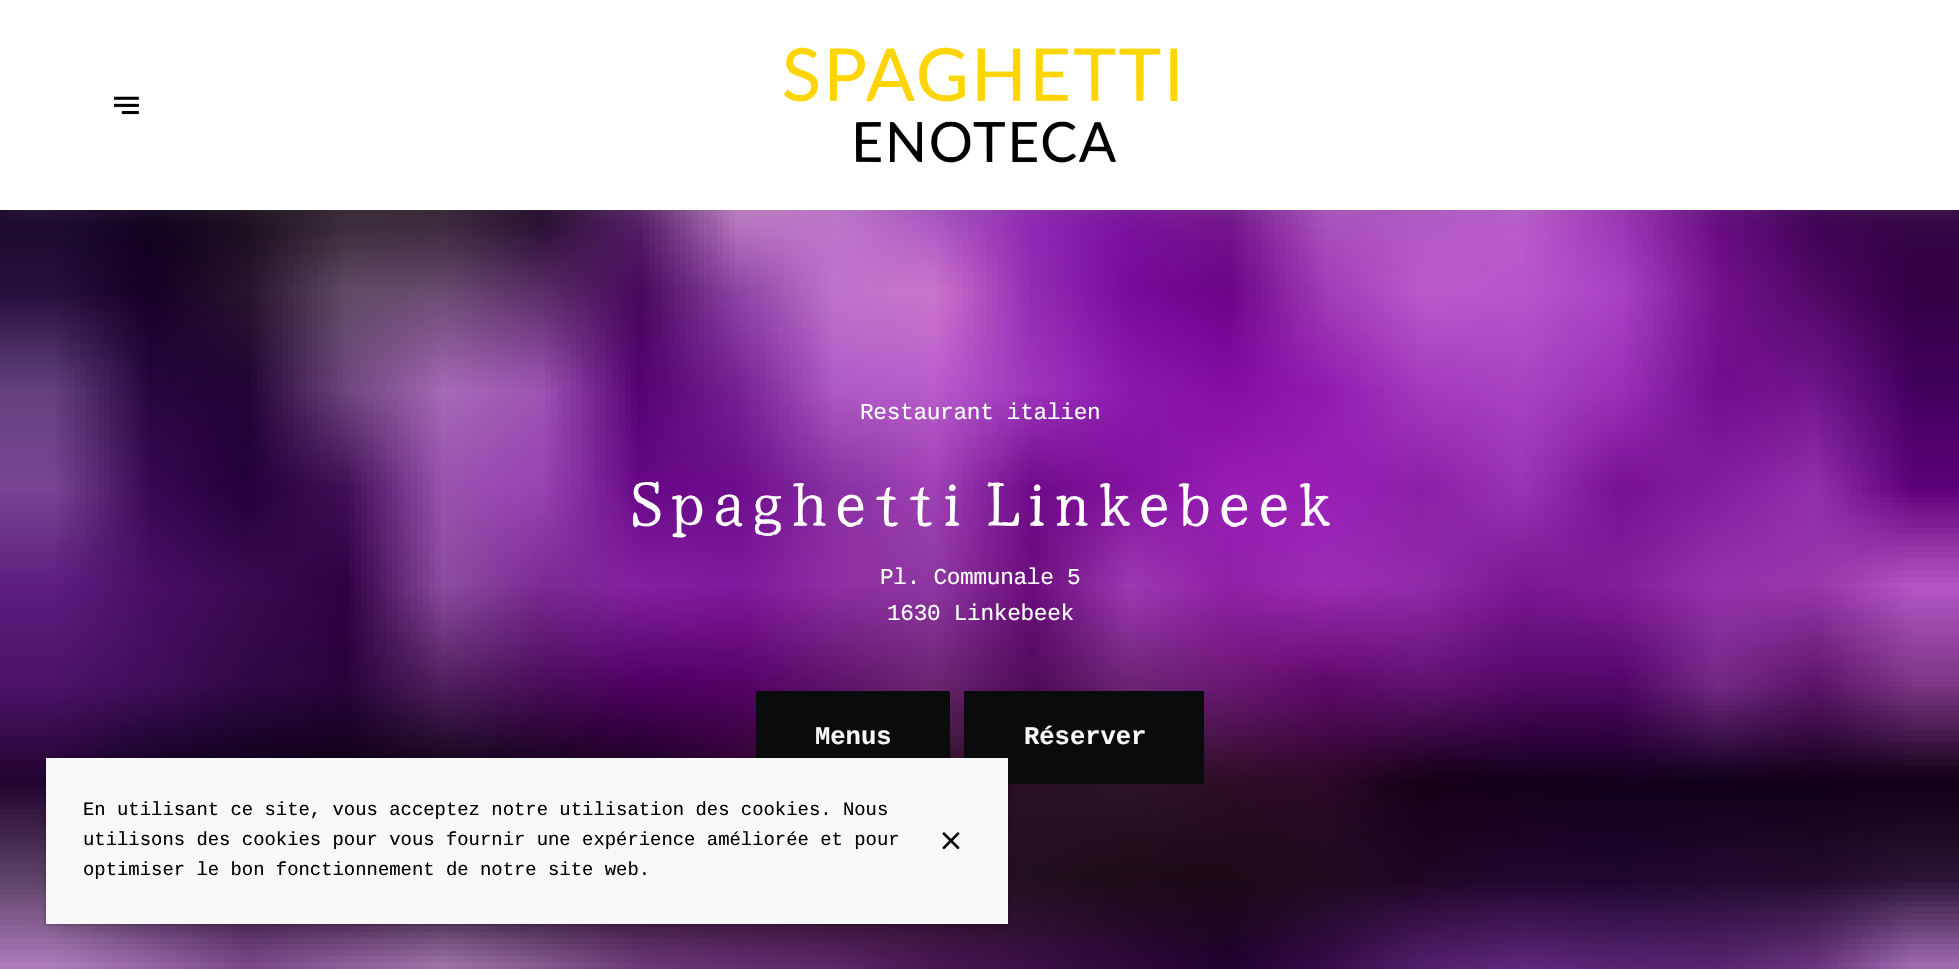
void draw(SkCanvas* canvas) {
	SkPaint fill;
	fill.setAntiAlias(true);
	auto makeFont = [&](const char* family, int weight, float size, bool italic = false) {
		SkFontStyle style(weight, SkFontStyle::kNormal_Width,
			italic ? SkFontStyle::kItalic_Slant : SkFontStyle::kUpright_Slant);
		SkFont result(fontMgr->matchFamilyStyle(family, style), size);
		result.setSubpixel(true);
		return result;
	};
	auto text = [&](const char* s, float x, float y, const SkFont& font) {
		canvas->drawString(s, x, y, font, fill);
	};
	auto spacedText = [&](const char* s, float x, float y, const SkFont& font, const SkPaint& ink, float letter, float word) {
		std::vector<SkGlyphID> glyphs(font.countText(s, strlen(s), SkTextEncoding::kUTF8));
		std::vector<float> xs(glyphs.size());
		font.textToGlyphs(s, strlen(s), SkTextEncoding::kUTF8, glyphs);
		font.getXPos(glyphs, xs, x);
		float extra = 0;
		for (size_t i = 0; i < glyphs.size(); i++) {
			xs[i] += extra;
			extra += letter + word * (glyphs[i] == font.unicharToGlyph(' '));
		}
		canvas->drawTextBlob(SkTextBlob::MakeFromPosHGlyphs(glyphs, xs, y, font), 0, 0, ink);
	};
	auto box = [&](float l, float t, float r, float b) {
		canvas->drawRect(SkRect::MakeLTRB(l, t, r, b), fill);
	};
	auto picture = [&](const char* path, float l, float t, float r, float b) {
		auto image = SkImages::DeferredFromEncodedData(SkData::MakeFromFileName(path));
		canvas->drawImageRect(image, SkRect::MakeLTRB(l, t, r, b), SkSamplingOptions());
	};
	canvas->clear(0xFFFFFFFF);
	picture("image2.png", 0, 210, 1959, 969);
	fill.setColor(0x267F7F7F);
	fill.setMaskFilter(SkMaskFilter::MakeBlur(kNormal_SkBlurStyle, 9));
	canvas->drawRect(SkRect::MakeLTRB(4, 4, 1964, 214), fill);
	fill.setMaskFilter(nullptr);
	fill.setColor(0xFFFFFFFF);
	box(0, 0, 1959, 210);
	picture("image0.png", 114, 96, 139, 115);
	picture("image1.png", 784, 47, 1178, 163);
	fill.setColor(0xFF090B0D);
	box(756, 691, 950, 758);
	box(964, 691, 1204, 784);
	fill.setStyle(SkPaint::kStroke_Style);
	fill.setStrokeWidth(2);
	fill.setColor(0x14010101);
	canvas->drawRect(SkRect::MakeLTRB(45, 757, 1009, 925), fill);
	fill.setStyle(SkPaint::kFill_Style);
	fill.setColor(0x24010101);
	fill.setMaskFilter(SkMaskFilter::MakeBlur(kNormal_SkBlurStyle, 7));
	canvas->drawRect(SkRect::MakeLTRB(49, 768, 1005, 928), fill);
	fill.setMaskFilter(nullptr);
	fill.setColor(0xFFF8F8F8);
	box(46, 758, 1008, 924);
	picture("image3.png", 942, 832, 960, 850);
	auto font1 = makeFont("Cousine", 400, 22.75f);
	fill.setColor(0xFFFFFFFF);
	spacedText("Restaurant italien", 860, 419, font1, fill, -0.3f, 0);
	auto font2 = makeFont("Yuji Syuku", 400, 65.75f);
	text("Spaghetti Linkebeek", 626, 526, font2);
	spacedText("Pl. Communale 5", 880, 584, font1, fill, -0.3f, 0);
	spacedText("1630 Linkebeek", 887, 620, font1, fill, -0.3f, 0);
	auto font3 = makeFont("Cousine", 700, 25.5f);
	fill.setColor(0xFFF8F8F8);
	text("Menus", 815, 744, font3);
	text("Réserver", 1024, 744, font3);
	auto font4 = makeFont("Cousine", 400, 18.9f);
	fill.setColor(0xFF010101);
	text("En utilisant ce site, vous acceptez notre utilisation des cookies. Nous", 83, 815, font4);
	text("utilisons des cookies pour vous fournir une expérience améliorée et pour", 83, 845, font4);
	text("optimiser le bon fonctionnement de notre site web.", 83, 875, font4);
}
